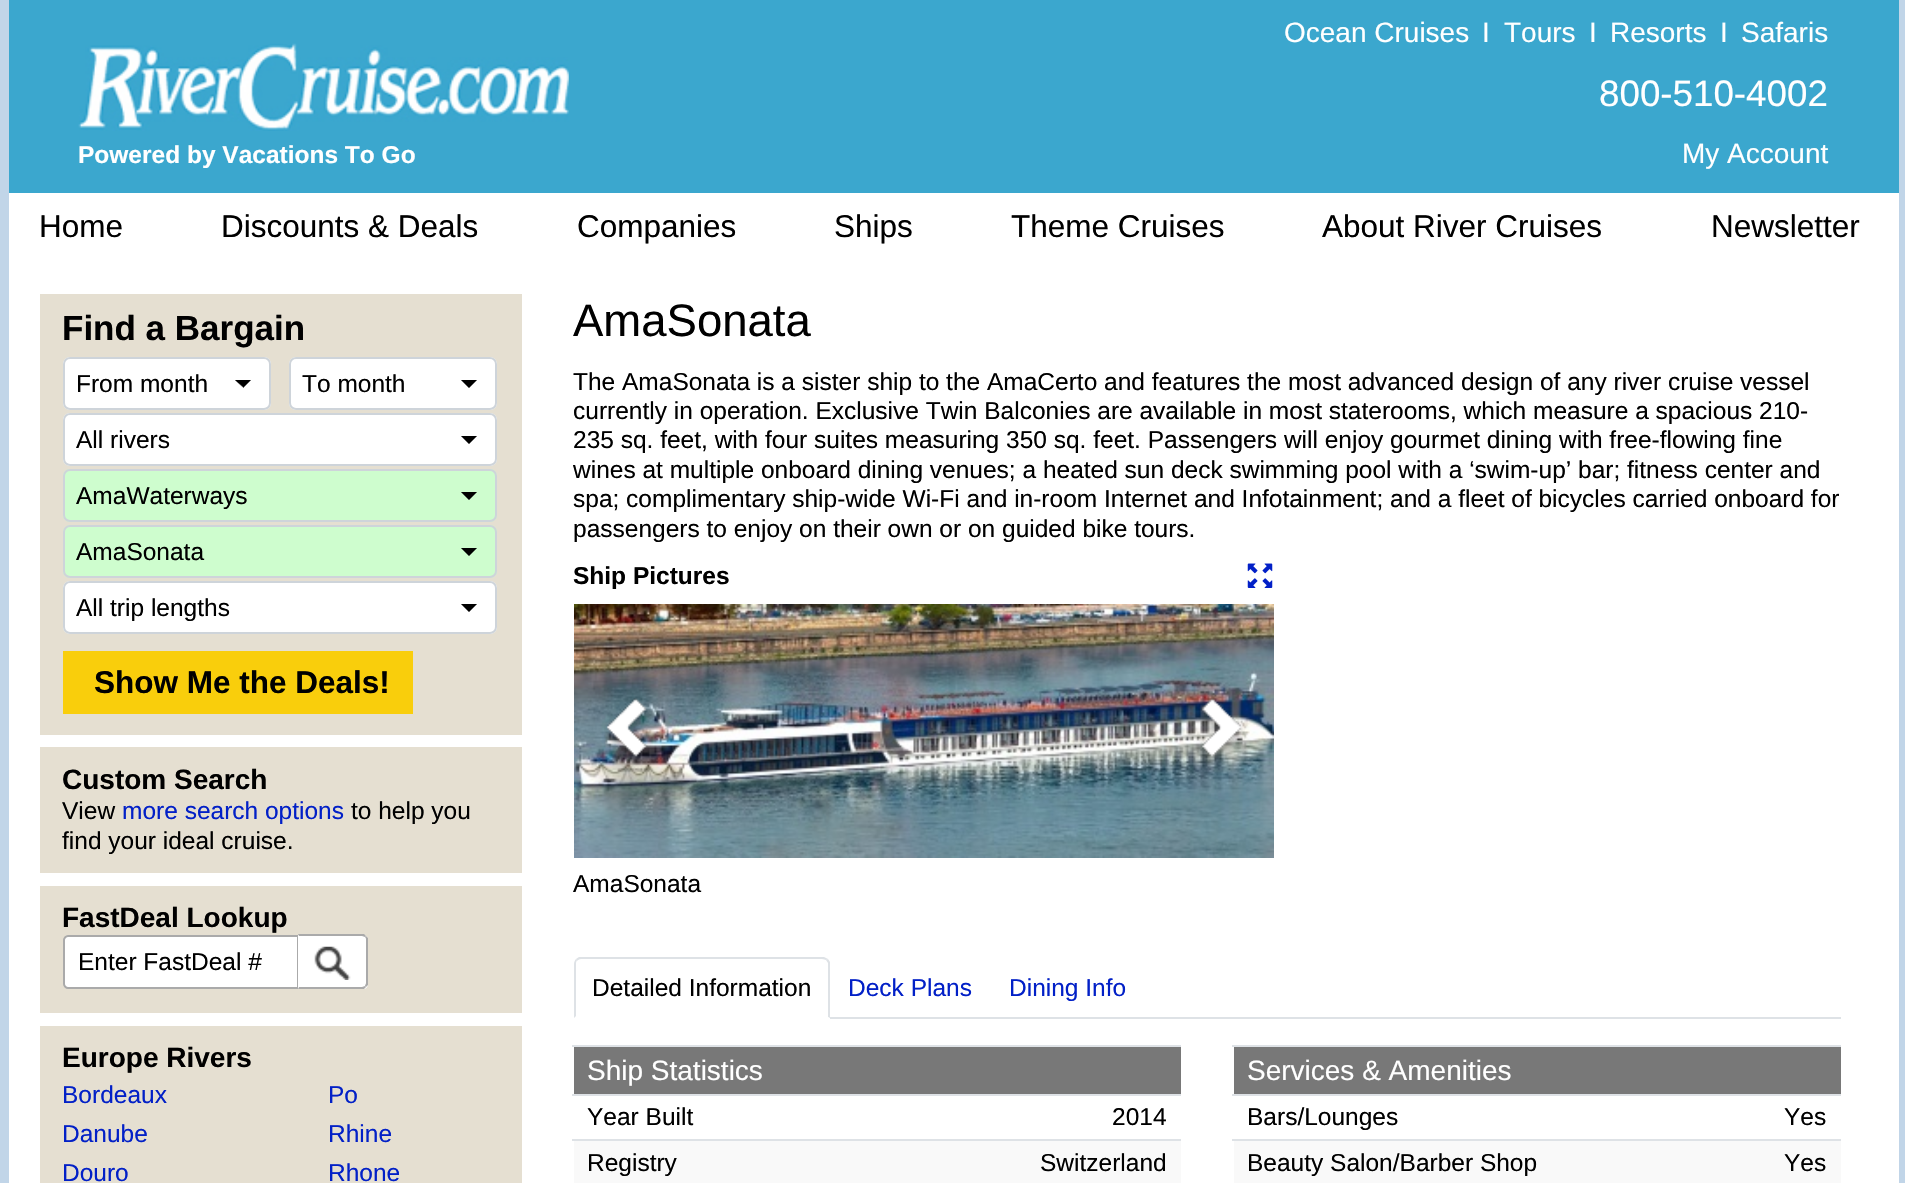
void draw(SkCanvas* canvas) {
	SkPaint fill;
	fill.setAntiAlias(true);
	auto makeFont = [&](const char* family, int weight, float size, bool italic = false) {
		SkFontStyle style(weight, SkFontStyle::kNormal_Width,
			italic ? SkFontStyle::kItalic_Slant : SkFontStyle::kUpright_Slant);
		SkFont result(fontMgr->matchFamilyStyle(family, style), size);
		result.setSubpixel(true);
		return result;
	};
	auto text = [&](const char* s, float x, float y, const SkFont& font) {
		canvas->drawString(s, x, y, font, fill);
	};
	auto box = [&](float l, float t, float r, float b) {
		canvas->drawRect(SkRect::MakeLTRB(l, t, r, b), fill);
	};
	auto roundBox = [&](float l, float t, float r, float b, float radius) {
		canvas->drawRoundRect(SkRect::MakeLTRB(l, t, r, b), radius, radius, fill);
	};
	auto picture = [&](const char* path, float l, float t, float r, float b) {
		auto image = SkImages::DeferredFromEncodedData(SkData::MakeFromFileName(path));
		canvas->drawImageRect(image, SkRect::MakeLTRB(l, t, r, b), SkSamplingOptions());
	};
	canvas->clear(0xFFC1D5E8);
	fill.setColor(0xFFFFFFFF);
	box(9, 193, 1899, 1183);
	fill.setColor(0xFF3BA7CE);
	box(9, 0, 1899, 193);
	picture("image0.png", 78, 43, 569, 131);
	fill.setColor(0xFFE5DFD1);
	box(40, 294, 522, 735);
	fill.setColor(0xFFFFFFFF);
	roundBox(63, 357, 271, 410, 7);
	{
		const SkColor colors[] = {0xFF000000, 0xFFFFFFFF};
		const float stops[] = {0.4f, 0.5f};
		const SkPoint ends[] = {{243, 380}, {252, 389}};
		fill.setShader(SkGradientShader::MakeLinear(ends, colors, stops, 2, SkTileMode::kClamp));
		fill.setAlpha(255);
	}
	box(243, 380, 251, 388);
	{
		const SkColor colors[] = {0xFFFFFFFF, 0xFF000000};
		const float stops[] = {0.5f, 0.6f};
		const SkPoint ends[] = {{235, 389}, {243, 380}};
		fill.setShader(SkGradientShader::MakeLinear(ends, colors, stops, 2, SkTileMode::kClamp));
		fill.setAlpha(255);
	}
	box(235, 380, 243, 389);
	fill.setStyle(SkPaint::kStroke_Style);
	fill.setStrokeWidth(2);
	fill.setShader(nullptr);
	fill.setColor(0xFFCED4DA);
	canvas->drawRoundRect(SkRect::MakeLTRB(64, 358, 270, 409), 6, 6, fill);
	fill.setStyle(SkPaint::kFill_Style);
	fill.setColor(0xFFFFFFFF);
	roundBox(289, 357, 497, 410, 7);
	{
		const SkColor colors[] = {0xFF000000, 0xFFFFFFFF};
		const float stops[] = {0.4f, 0.5f};
		const SkPoint ends[] = {{469, 380}, {478, 389}};
		fill.setShader(SkGradientShader::MakeLinear(ends, colors, stops, 2, SkTileMode::kClamp));
		fill.setAlpha(255);
	}
	box(469, 380, 477, 388);
	{
		const SkColor colors[] = {0xFFFFFFFF, 0xFF000000};
		const float stops[] = {0.5f, 0.6f};
		const SkPoint ends[] = {{460, 389}, {469, 380}};
		fill.setShader(SkGradientShader::MakeLinear(ends, colors, stops, 2, SkTileMode::kClamp));
		fill.setAlpha(255);
	}
	box(461, 380, 469, 388);
	fill.setStyle(SkPaint::kStroke_Style);
	fill.setShader(nullptr);
	fill.setColor(0xFFCED4DA);
	canvas->drawRoundRect(SkRect::MakeLTRB(290, 358, 496, 409), 6, 6, fill);
	fill.setStyle(SkPaint::kFill_Style);
	fill.setColor(0xFFFFFFFF);
	roundBox(63, 413, 497, 466, 7);
	{
		const SkColor colors[] = {0xFF000000, 0xFFFFFFFF};
		const float stops[] = {0.4f, 0.5f};
		const SkPoint ends[] = {{469, 436}, {478, 445}};
		fill.setShader(SkGradientShader::MakeLinear(ends, colors, stops, 2, SkTileMode::kClamp));
		fill.setAlpha(255);
	}
	box(469, 436, 477, 444);
	{
		const SkColor colors[] = {0xFFFFFFFF, 0xFF000000};
		const float stops[] = {0.5f, 0.6f};
		const SkPoint ends[] = {{460, 445}, {469, 436}};
		fill.setShader(SkGradientShader::MakeLinear(ends, colors, stops, 2, SkTileMode::kClamp));
		fill.setAlpha(255);
	}
	box(461, 436, 469, 444);
	fill.setStyle(SkPaint::kStroke_Style);
	fill.setShader(nullptr);
	fill.setColor(0xFFCED4DA);
	canvas->drawRoundRect(SkRect::MakeLTRB(64, 414, 496, 465), 6, 6, fill);
	fill.setStyle(SkPaint::kFill_Style);
	fill.setColor(0xFFCEFDCE);
	roundBox(63, 469, 497, 522, 7);
	{
		const SkColor colors[] = {0xFF000000, 0xFFCEFDCE};
		const float stops[] = {0.4f, 0.5f};
		const SkPoint ends[] = {{469, 492}, {478, 501}};
		fill.setShader(SkGradientShader::MakeLinear(ends, colors, stops, 2, SkTileMode::kClamp));
		fill.setAlpha(255);
	}
	box(469, 492, 477, 500);
	{
		const SkColor colors[] = {0xFFCEFDCE, 0xFF000000};
		const float stops[] = {0.5f, 0.6f};
		const SkPoint ends[] = {{460, 501}, {469, 492}};
		fill.setShader(SkGradientShader::MakeLinear(ends, colors, stops, 2, SkTileMode::kClamp));
		fill.setAlpha(255);
	}
	box(461, 492, 469, 500);
	fill.setStyle(SkPaint::kStroke_Style);
	fill.setShader(nullptr);
	fill.setColor(0xFFCED4DA);
	canvas->drawRoundRect(SkRect::MakeLTRB(64, 470, 496, 521), 6, 6, fill);
	fill.setStyle(SkPaint::kFill_Style);
	fill.setColor(0xFFCEFDCE);
	roundBox(63, 525, 497, 578, 7);
	{
		const SkColor colors[] = {0xFF000000, 0xFFCEFDCE};
		const float stops[] = {0.4f, 0.5f};
		const SkPoint ends[] = {{469, 548}, {478, 557}};
		fill.setShader(SkGradientShader::MakeLinear(ends, colors, stops, 2, SkTileMode::kClamp));
		fill.setAlpha(255);
	}
	box(469, 548, 477, 556);
	{
		const SkColor colors[] = {0xFFCEFDCE, 0xFF000000};
		const float stops[] = {0.5f, 0.6f};
		const SkPoint ends[] = {{460, 557}, {469, 548}};
		fill.setShader(SkGradientShader::MakeLinear(ends, colors, stops, 2, SkTileMode::kClamp));
		fill.setAlpha(255);
	}
	box(461, 548, 469, 556);
	fill.setStyle(SkPaint::kStroke_Style);
	fill.setShader(nullptr);
	fill.setColor(0xFFCED4DA);
	canvas->drawRoundRect(SkRect::MakeLTRB(64, 526, 496, 577), 6, 6, fill);
	fill.setStyle(SkPaint::kFill_Style);
	fill.setColor(0xFFFFFFFF);
	roundBox(63, 581, 497, 634, 7);
	{
		const SkColor colors[] = {0xFF000000, 0xFFFFFFFF};
		const float stops[] = {0.4f, 0.5f};
		const SkPoint ends[] = {{469, 604}, {478, 613}};
		fill.setShader(SkGradientShader::MakeLinear(ends, colors, stops, 2, SkTileMode::kClamp));
		fill.setAlpha(255);
	}
	box(469, 604, 477, 612);
	{
		const SkColor colors[] = {0xFFFFFFFF, 0xFF000000};
		const float stops[] = {0.5f, 0.6f};
		const SkPoint ends[] = {{460, 613}, {469, 604}};
		fill.setShader(SkGradientShader::MakeLinear(ends, colors, stops, 2, SkTileMode::kClamp));
		fill.setAlpha(255);
	}
	box(461, 604, 469, 612);
	fill.setStyle(SkPaint::kStroke_Style);
	fill.setShader(nullptr);
	fill.setColor(0xFFCED4DA);
	canvas->drawRoundRect(SkRect::MakeLTRB(64, 582, 496, 633), 6, 6, fill);
	fill.setStyle(SkPaint::kFill_Style);
	fill.setColor(0xFFF9CE0C);
	box(63, 651, 413, 714);
	fill.setColor(0xFFE5DFD1);
	box(40, 747, 522, 873);
	box(40, 886, 522, 1013);
	fill.setColor(0xFFFFFFFF);
	canvas->drawPath(SkPathBuilder().moveTo(68, 936).lineTo(298, 936).lineTo(298, 988).lineTo(68, 988).cubicTo(66, 988, 64, 986, 64, 984).lineTo(64, 940).cubicTo(64, 938, 66, 936, 68, 936).close().detach(), fill);
	fill.setStyle(SkPaint::kStroke_Style);
	fill.setColor(0xFFAAAAAA);
	canvas->drawPath(SkPathBuilder().moveTo(68, 936).lineTo(298, 936).lineTo(298, 988).lineTo(68, 988).cubicTo(66, 988, 64, 986, 64, 984).lineTo(64, 940).cubicTo(64, 938, 66, 936, 68, 936).close().detach(), fill);
	fill.setStyle(SkPaint::kFill_Style);
	fill.setColor(0xFFFFFFFF);
	canvas->drawPath(SkPathBuilder().moveTo(298, 935).lineTo(363, 935).cubicTo(366, 935, 368, 937, 368, 940).lineTo(368, 984).cubicTo(368, 987, 366, 989, 363, 989).lineTo(298, 989).close().detach(), fill);
	fill.setColor(0xFFAAAAAA);
	canvas->drawPath(SkPathBuilder().moveTo(299, 936).lineTo(298, 934).lineTo(364, 934).lineTo(366, 936).lineTo(365, 937).lineTo(362, 936).close().detach(), fill);
	canvas->drawPath(SkPathBuilder().moveTo(368, 985).lineTo(366, 987).lineTo(365, 986).cubicTo(365, 985, 366, 984, 366, 983).lineTo(366, 940).cubicTo(366, 939, 366, 938, 365, 937).lineTo(366, 936).lineTo(368, 938).close().detach(), fill);
	canvas->drawPath(SkPathBuilder().moveTo(298, 989).lineTo(299, 987).lineTo(362, 987).lineTo(365, 986).lineTo(366, 987).lineTo(364, 989).close().detach(), fill);
	picture("image1.png", 314, 946, 351, 980);
	fill.setColor(0xFFE5DFD1);
	box(40, 1026, 522, 1183);
	picture("image2.png", 1247, 563, 1273, 588);
	picture("image3.png", 574, 604, 1274, 858);
	picture("image4.png", 604, 697, 653, 765);
	picture("image5.png", 1196, 697, 1245, 765);
	fill.setColor(0xFFDEE2E6);
	box(830, 1017, 1841, 1019);
	canvas->drawPath(SkPathBuilder().moveTo(581, 959).cubicTo(579, 959, 578, 960, 577, 961).lineTo(576, 959).lineTo(579, 957).lineTo(824, 957).lineTo(828, 959).lineTo(826, 960).cubicTo(825, 960, 824, 959, 822, 959).close().detach(), fill);
	canvas->drawPath(SkPathBuilder().moveTo(830, 1018).lineTo(828, 1017).lineTo(828, 963).lineTo(826, 960).lineTo(828, 959).lineTo(830, 962).close().detach(), fill);
	fill.setColor(0xFFFFFFFF);
	canvas->drawPath(SkPathBuilder().moveTo(829, 1018).lineTo(574, 1018).lineTo(576, 1016).lineTo(576, 1017).lineTo(828, 1017).close().detach(), fill);
	fill.setColor(0xFFDEE2E6);
	canvas->drawPath(SkPathBuilder().moveTo(574, 964).lineTo(574, 1018).lineTo(576, 1016).lineTo(576, 964).cubicTo(576, 963, 576, 961, 577, 961).lineTo(576, 959).cubicTo(575, 960, 574, 962, 574, 964).close().detach(), fill);
	fill.setColor(0xFF787878);
	box(574, 1047, 1181, 1094);
	fill.setColor(0xFFDEE2E6);
	box(572, 1045, 1181, 1047);
	box(572, 1094, 1181, 1096);
	fill.setColor(0xFFF9F9F9);
	box(574, 1141, 1181, 1183);
	fill.setColor(0xFFDEE2E6);
	box(572, 1139, 1181, 1141);
	fill.setColor(0xFF787878);
	box(1234, 1047, 1841, 1094);
	fill.setColor(0xFFDEE2E6);
	box(1232, 1045, 1841, 1047);
	box(1232, 1094, 1841, 1096);
	fill.setColor(0xFFF9F9F9);
	box(1234, 1141, 1841, 1183);
	fill.setColor(0xFFDEE2E6);
	box(1232, 1139, 1841, 1141);
	auto font1 = makeFont("Liberation Sans", 700, 24.5f);
	fill.setColor(0xFFFFFFFF);
	text("Powered by Vacations To Go", 78, 163, font1);
	auto font2 = makeFont("Liberation Sans", 400, 28);
	text("Ocean Cruises", 1284, 42, font2);
	text("I", 1482, 42, font2);
	text("Tours", 1504, 42, font2);
	text("I", 1589, 42, font2);
	text("Resorts", 1610, 42, font2);
	text("I", 1720, 42, font2);
	text("Safaris", 1741, 42, font2);
	auto font3 = makeFont("Liberation Sans", 400, 36.75f);
	text("800-510-4002", 1599, 106, font3);
	text("My Account", 1682, 163, font2);
	auto font4 = makeFont("Liberation Sans", 400, 31.5f);
	fill.setColor(0xFF000000);
	text("Home", 39, 237, font4);
	text("Discounts & Deals", 221, 237, font4);
	text("Companies", 577, 237, font4);
	text("Ships", 834, 237, font4);
	text("Theme Cruises", 1011, 237, font4);
	text("About River Cruises", 1322, 237, font4);
	text("Newsletter", 1711, 237, font4);
	auto font5 = makeFont("Liberation Sans", 700, 35);
	text("Find a Bargain", 62, 340, font5);
	auto font6 = makeFont("Liberation Sans", 400, 24.5f);
	text("From month", 76, 392, font6);
	text("To month", 302, 392, font6);
	text("All rivers", 76, 448, font6);
	text("AmaWaterways", 76, 504, font6);
	text("AmaSonata", 76, 560, font6);
	text("All trip lengths", 76, 616, font6);
	auto font7 = makeFont("Liberation Sans", 700, 31.5f);
	text("Show Me the Deals!", 94, 693, font7);
	auto font8 = makeFont("Liberation Sans", 700, 28);
	text("Custom Search", 62, 789, font8);
	text("View", 62, 819, font6);
	fill.setColor(0xFF0220C7);
	text("more search options", 122, 819, font6);
	fill.setColor(0xFF000000);
	text("to help you", 351, 819, font6);
	text("find your ideal cruise.", 62, 849, font6);
	text("FastDeal Lookup", 62, 927, font8);
	text("Enter FastDeal #", 78, 970, font6);
	text("Europe Rivers", 62, 1067, font8);
	fill.setColor(0xFF0220C7);
	text("Bordeaux", 62, 1103, font6);
	text("Danube", 62, 1142, font6);
	text("Douro", 62, 1181, font6);
	text("Po", 328, 1103, font6);
	text("Rhine", 328, 1142, font6);
	text("Rhone", 328, 1181, font6);
	auto font9 = makeFont("Liberation Sans", 400, 45.5f);
	fill.setColor(0xFF000000);
	text("AmaSonata", 573, 336, font9);
	text("The AmaSonata is a sister ship to the AmaCerto and features the most advanced design of any river cruise vessel", 573, 390, font6);
	text("currently in operation. Exclusive Twin Balconies are available in most staterooms, which measure a spacious 210-", 573, 419, font6);
	text("235 sq. feet, with four suites measuring 350 sq. feet. Passengers will enjoy gourmet dining with free-flowing fine", 573, 448, font6);
	text("wines at multiple onboard dining venues; a heated sun deck swimming pool with a ‘swim-up’ bar; fitness center and", 573, 478, font6);
	text("spa; complimentary ship-wide Wi-Fi and in-room Internet and Infotainment; and a fleet of bicycles carried onboard for", 573, 507, font6);
	text("passengers to enjoy on their own or on guided bike tours.", 573, 537, font6);
	text("Ship Pictures", 573, 584, font1);
	text("AmaSonata", 573, 892, font6);
	text("Detailed Information", 592, 996, font6);
	fill.setColor(0xFF0220C7);
	text("Deck Plans", 848, 996, font6);
	text("Dining Info", 1009, 996, font6);
	fill.setColor(0xFFFFFFFF);
	text("Ship Statistics", 587, 1080, font2);
	fill.setColor(0xFF000000);
	text("Year Built", 587, 1125, font6);
	text("2014", 1112, 1125, font6);
	text("Registry", 587, 1171, font6);
	text("Switzerland", 1040, 1171, font6);
	fill.setColor(0xFFFFFFFF);
	text("Services & Amenities", 1247, 1080, font2);
	fill.setColor(0xFF000000);
	text("Bars/Lounges", 1247, 1125, font6);
	text("Yes", 1784, 1125, font6);
	text("Beauty Salon/Barber Shop", 1247, 1171, font6);
	text("Yes", 1784, 1171, font6);
}
